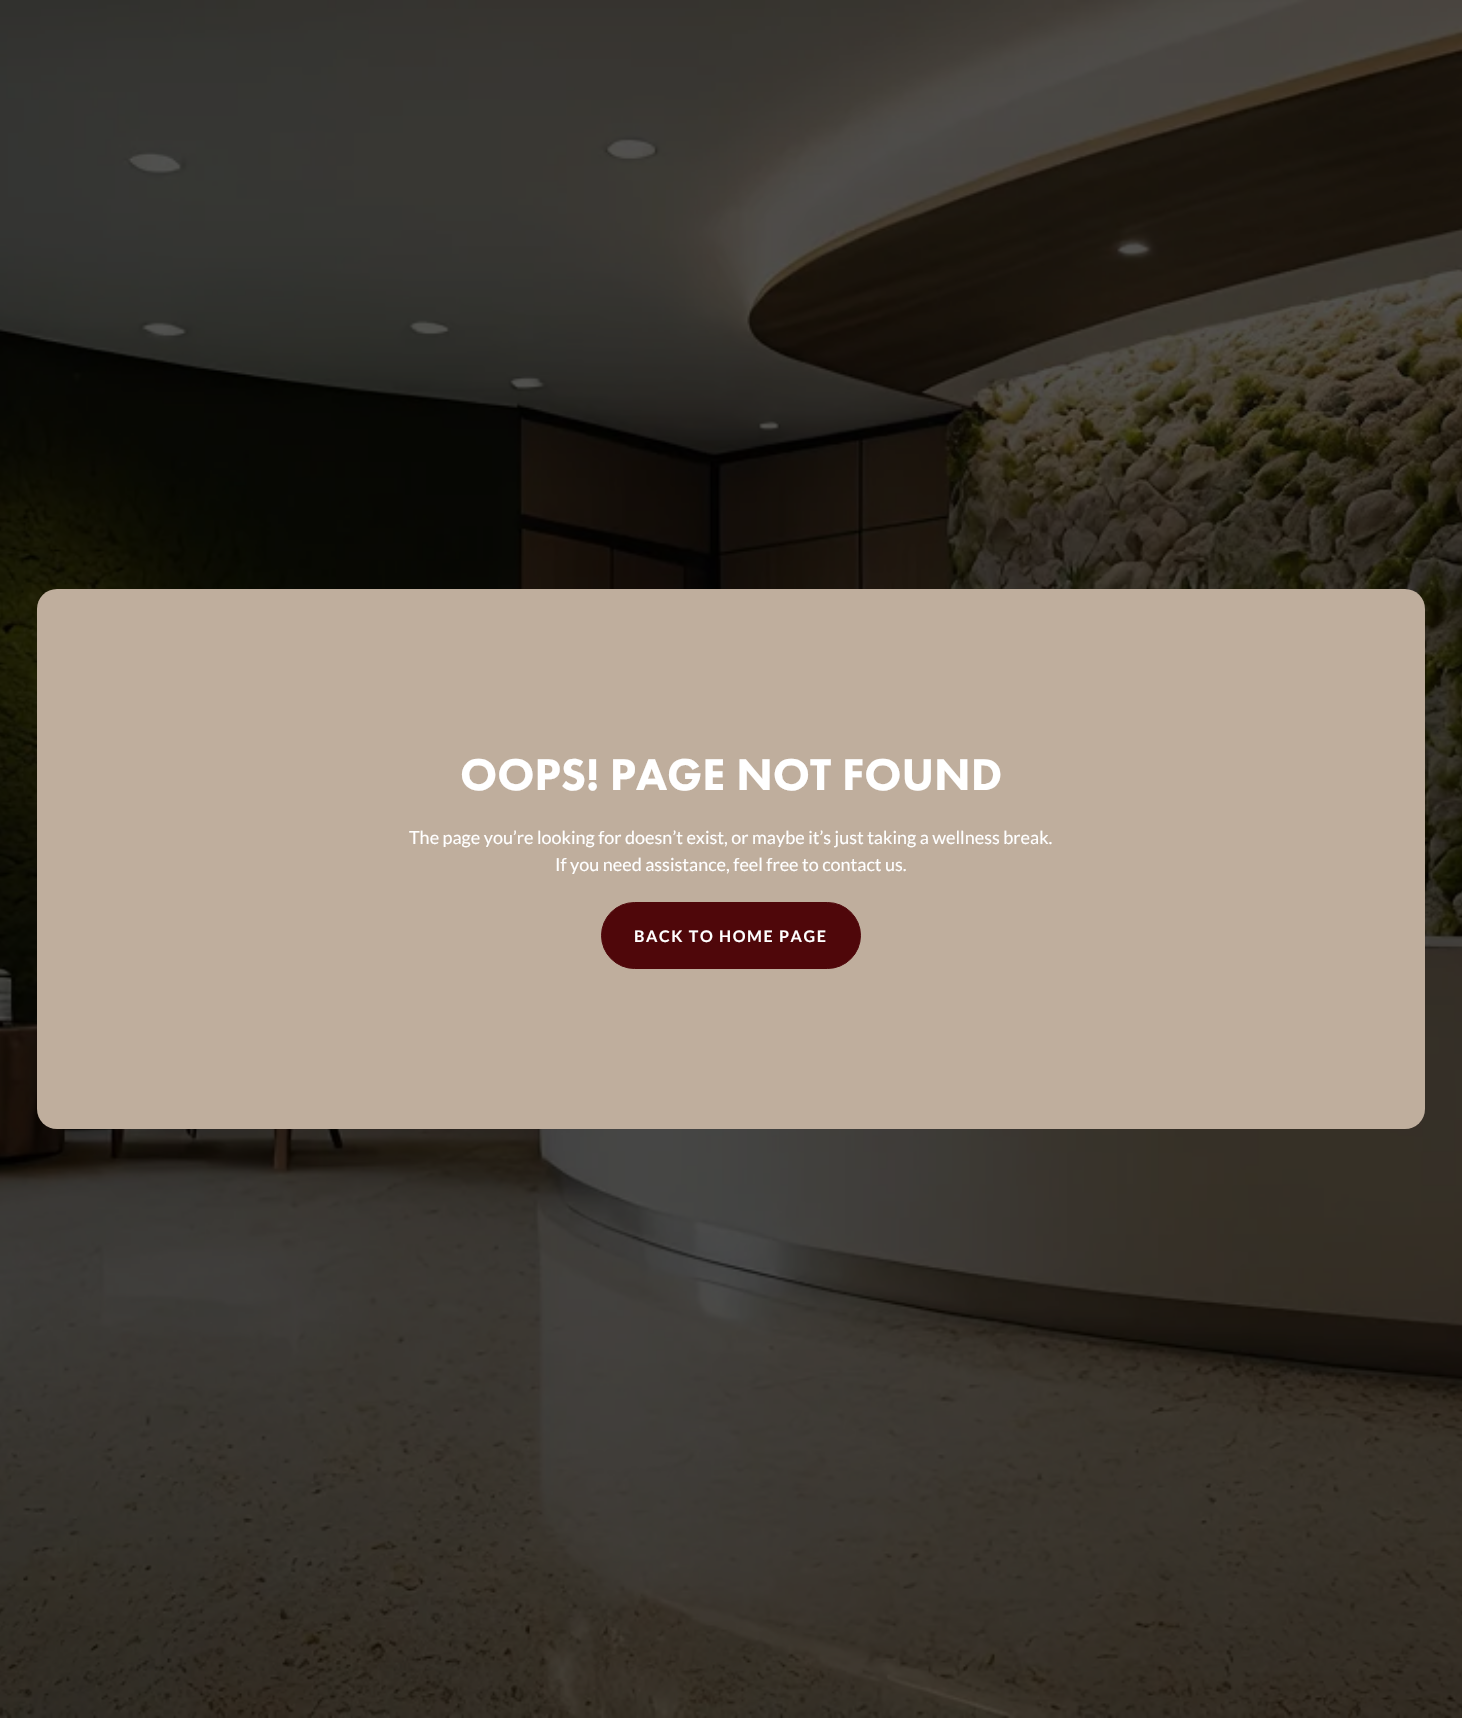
void draw(SkCanvas* canvas) {
	SkPaint fill;
	fill.setAntiAlias(true);
	auto makeFont = [&](const char* family, int weight, float size, bool italic = false) {
		SkFontStyle style(weight, SkFontStyle::kNormal_Width,
			italic ? SkFontStyle::kItalic_Slant : SkFontStyle::kUpright_Slant);
		SkFont result(fontMgr->matchFamilyStyle(family, style), size);
		result.setSubpixel(true);
		return result;
	};
	auto text = [&](const char* s, float x, float y, const SkFont& font) {
		canvas->drawString(s, x, y, font, fill);
	};
	auto spacedText = [&](const char* s, float x, float y, const SkFont& font, const SkPaint& ink, float letter, float word) {
		std::vector<SkGlyphID> glyphs(font.countText(s, strlen(s), SkTextEncoding::kUTF8));
		std::vector<float> xs(glyphs.size());
		font.textToGlyphs(s, strlen(s), SkTextEncoding::kUTF8, glyphs);
		font.getXPos(glyphs, xs, x);
		float extra = 0;
		for (size_t i = 0; i < glyphs.size(); i++) {
			xs[i] += extra;
			extra += letter + word * (glyphs[i] == font.unicharToGlyph(' '));
		}
		canvas->drawTextBlob(SkTextBlob::MakeFromPosHGlyphs(glyphs, xs, y, font), 0, 0, ink);
	};
	auto roundBox = [&](float l, float t, float r, float b, float radius) {
		canvas->drawRoundRect(SkRect::MakeLTRB(l, t, r, b), radius, radius, fill);
	};
	auto picture = [&](const char* path, float l, float t, float r, float b) {
		auto image = SkImages::DeferredFromEncodedData(SkData::MakeFromFileName(path));
		canvas->drawImageRect(image, SkRect::MakeLTRB(l, t, r, b), SkSamplingOptions());
	};
	canvas->clear(0xFFFFFFFF);
	picture("image0.png", 0, 0, 1462, 1718);
	fill.setColor(0xFFBFAE9D);
	roundBox(37, 589, 1425, 1129, 20);
	fill.setColor(0xFF4F070A);
	canvas->drawRoundRect(SkRect::MakeLTRB(601.5f, 902.5f, 860.5f, 968.5f), 33, 33, fill);
	fill.setStyle(SkPaint::kStroke_Style);
	fill.setStrokeWidth(1);
	canvas->drawRoundRect(SkRect::MakeLTRB(601.5f, 902.5f, 860.5f, 968.5f), 33, 33, fill);
	auto font1 = makeFont("Futura PT", 900, 46);
	fill.setStyle(SkPaint::kFill_Style);
	fill.setColor(0xFFFFFFFF);
	text("OOPS! PAGE NOT FOUND", 460, 790, font1);
	auto font2 = makeFont("Lato", 400, 18);
	text("The page you’re looking for doesn’t exist, or maybe it’s just taking a wellness break.", 409, 844, font2);
	text("If you need assistance, feel free to contact us.", 555, 871, font2);
	auto font3 = makeFont("Lato", 700, 16);
	spacedText("BACK TO HOME PAGE", 634, 942, font3, fill, 1.6f, 0);
}
